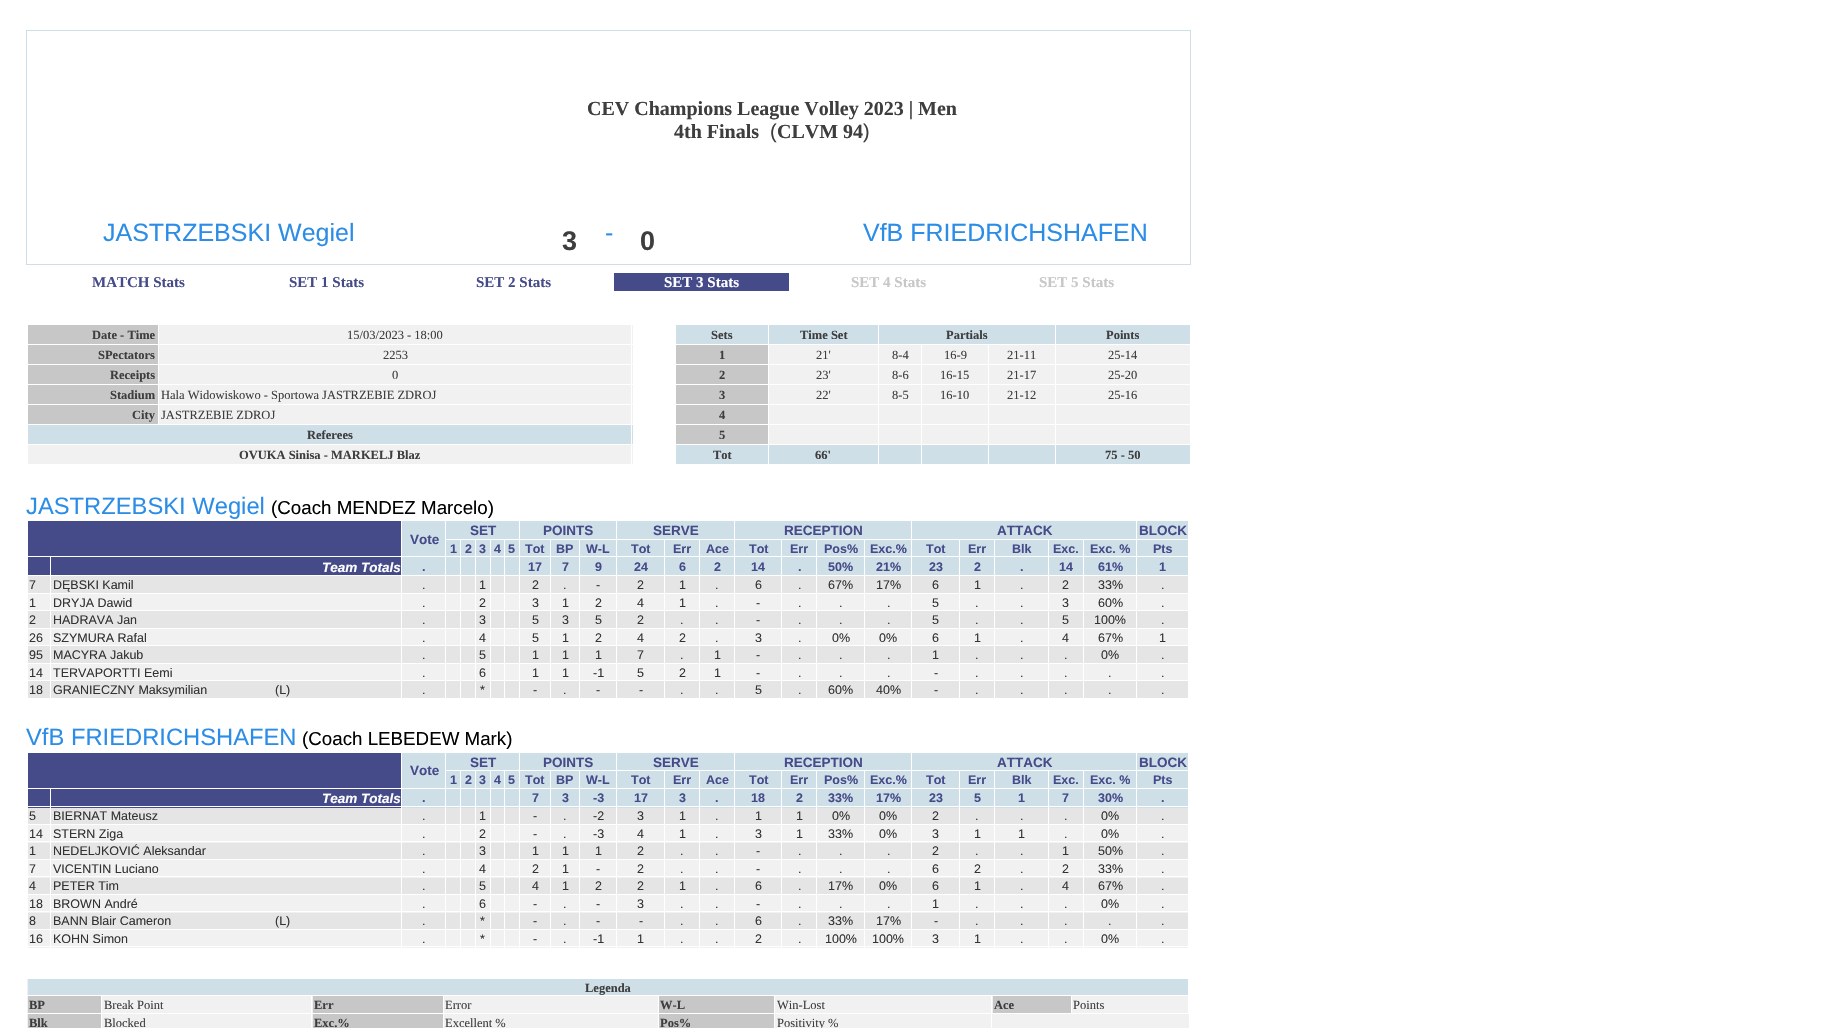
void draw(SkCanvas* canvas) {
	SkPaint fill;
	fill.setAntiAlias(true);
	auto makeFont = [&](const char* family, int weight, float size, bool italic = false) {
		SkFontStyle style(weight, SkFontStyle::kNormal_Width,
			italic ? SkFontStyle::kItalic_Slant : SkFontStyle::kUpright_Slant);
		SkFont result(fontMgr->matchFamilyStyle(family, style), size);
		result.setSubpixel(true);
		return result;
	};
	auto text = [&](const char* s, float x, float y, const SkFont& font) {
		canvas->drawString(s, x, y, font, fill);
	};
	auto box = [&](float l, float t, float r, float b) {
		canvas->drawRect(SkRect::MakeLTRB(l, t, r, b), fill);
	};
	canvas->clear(0xFFFFFFFF);
	fill.setColor(0xFFCFDFE8);
	box(26, 30, 1191, 31);
	box(1190, 30, 1191, 265);
	box(26, 264, 1191, 265);
	box(26, 30, 27, 265);
	fill.setColor(0xFF454B88);
	box(614, 273, 789, 291);
	fill.setColor(0xFFF1F1F1);
	box(159, 325, 633, 344);
	box(159, 345, 633, 364);
	box(159, 365, 633, 384);
	box(159, 385, 633, 404);
	box(159, 405, 633, 424);
	fill.setColor(0xFFCFDFE8);
	box(28, 425, 633, 444);
	fill.setColor(0xFFF1F1F1);
	box(28, 445, 633, 464);
	fill.setColor(0xFFFFFFFF);
	box(631, 324, 632, 465);
	fill.setColor(0xFFC7C7C7);
	box(28, 325, 158, 344);
	box(28, 345, 158, 364);
	box(28, 365, 158, 384);
	box(28, 385, 158, 404);
	box(28, 405, 158, 424);
	fill.setColor(0xFFCFDFE8);
	box(676, 325, 768, 344);
	box(769, 325, 878, 344);
	box(879, 325, 1055, 344);
	box(1056, 325, 1190, 344);
	fill.setColor(0xFFC7C7C7);
	box(676, 345, 768, 364);
	fill.setColor(0xFFF1F1F1);
	box(769, 345, 878, 364);
	box(879, 345, 921, 364);
	box(922, 345, 988, 364);
	box(989, 345, 1055, 364);
	box(1056, 345, 1190, 364);
	fill.setColor(0xFFC7C7C7);
	box(676, 365, 768, 384);
	fill.setColor(0xFFF1F1F1);
	box(769, 365, 878, 384);
	box(879, 365, 921, 384);
	box(922, 365, 988, 384);
	box(989, 365, 1055, 384);
	box(1056, 365, 1190, 384);
	fill.setColor(0xFFC7C7C7);
	box(676, 385, 768, 404);
	fill.setColor(0xFFF1F1F1);
	box(769, 385, 878, 404);
	box(879, 385, 921, 404);
	box(922, 385, 988, 404);
	box(989, 385, 1055, 404);
	box(1056, 385, 1190, 404);
	fill.setColor(0xFFC7C7C7);
	box(676, 405, 768, 424);
	fill.setColor(0xFFF1F1F1);
	box(769, 405, 878, 424);
	box(879, 405, 921, 424);
	box(922, 405, 988, 424);
	box(989, 405, 1055, 424);
	box(1056, 405, 1190, 424);
	fill.setColor(0xFFC7C7C7);
	box(676, 425, 768, 444);
	fill.setColor(0xFFF1F1F1);
	box(769, 425, 878, 444);
	box(879, 425, 921, 444);
	box(922, 425, 988, 444);
	box(989, 425, 1055, 444);
	box(1056, 425, 1190, 444);
	fill.setColor(0xFFCFDFE8);
	box(676, 445, 768, 464);
	box(769, 445, 878, 464);
	box(879, 445, 921, 464);
	box(922, 445, 988, 464);
	box(989, 445, 1055, 464);
	box(1056, 445, 1190, 464);
	fill.setColor(0xFF454B88);
	box(28, 521, 401, 558);
	fill.setColor(0xFFCFDFE8);
	box(446, 521, 519, 539);
	box(520, 521, 734, 539);
	box(735, 521, 1188, 539);
	box(402, 521, 445, 558);
	box(446, 540, 460, 558);
	box(461, 540, 475, 558);
	box(476, 540, 490, 558);
	box(491, 540, 504, 558);
	box(505, 540, 519, 558);
	box(520, 540, 550, 558);
	box(551, 540, 579, 558);
	box(580, 540, 664, 558);
	box(665, 540, 699, 558);
	box(700, 540, 734, 558);
	box(735, 540, 864, 558);
	box(865, 540, 959, 558);
	box(960, 540, 994, 558);
	box(995, 540, 1048, 558);
	box(1049, 540, 1083, 558);
	box(1084, 540, 1188, 558);
	box(402, 558, 1188, 575);
	fill.setColor(0xFFFFFFFF);
	box(26, 556, 1189, 557);
	fill.setColor(0xFF454B88);
	box(28, 558, 50, 575);
	box(51, 558, 401, 575);
	fill.setColor(0xFFFFFFFF);
	box(50, 556, 51, 558);
	fill.setColor(0xFFE5E5E5);
	box(28, 576, 1188, 593);
	fill.setColor(0xFFF1F1F1);
	box(28, 594, 1188, 610);
	fill.setColor(0xFFE5E5E5);
	box(28, 611, 1188, 628);
	fill.setColor(0xFFF1F1F1);
	box(28, 629, 1188, 645);
	fill.setColor(0xFFE5E5E5);
	box(28, 646, 1188, 663);
	fill.setColor(0xFFF1F1F1);
	box(28, 664, 1188, 680);
	fill.setColor(0xFFE5E5E5);
	box(28, 681, 1188, 698);
	fill.setColor(0xFFFFFFFF);
	box(50, 575, 51, 699);
	box(445, 556, 446, 699);
	box(460, 556, 461, 699);
	box(475, 556, 476, 699);
	box(490, 556, 491, 699);
	box(504, 556, 505, 699);
	box(519, 556, 520, 699);
	box(579, 556, 580, 699);
	box(616, 520, 617, 699);
	box(734, 556, 735, 699);
	box(816, 539, 817, 699);
	box(864, 556, 865, 699);
	box(911, 520, 912, 699);
	box(401, 575, 402, 699);
	box(550, 556, 551, 699);
	box(664, 556, 665, 699);
	box(699, 556, 700, 699);
	box(781, 539, 782, 699);
	box(959, 556, 960, 699);
	box(994, 556, 995, 699);
	box(1048, 556, 1049, 699);
	box(1083, 556, 1084, 699);
	box(1136, 520, 1137, 699);
	fill.setColor(0xFFF1F1F1);
	box(28, 930, 1188, 948);
	fill.setColor(0xFFFFFFFF);
	box(26, 946, 1189, 947);
	fill.setColor(0xFF454B88);
	box(28, 753, 401, 788);
	fill.setColor(0xFFCFDFE8);
	box(446, 753, 519, 770);
	box(520, 753, 734, 770);
	box(735, 753, 1188, 770);
	box(402, 753, 445, 788);
	box(446, 771, 460, 788);
	box(461, 771, 475, 788);
	box(476, 771, 490, 788);
	box(491, 771, 504, 788);
	box(505, 771, 519, 788);
	box(520, 771, 550, 788);
	box(551, 771, 579, 788);
	box(580, 771, 664, 788);
	box(665, 771, 699, 788);
	box(700, 771, 734, 788);
	box(735, 771, 864, 788);
	box(865, 771, 959, 788);
	box(960, 771, 994, 788);
	box(995, 771, 1048, 788);
	box(1049, 771, 1083, 788);
	box(1084, 771, 1188, 788);
	box(402, 789, 1188, 808);
	fill.setColor(0xFF454B88);
	box(28, 789, 50, 808);
	box(51, 789, 401, 808);
	fill.setColor(0xFFE5E5E5);
	box(28, 808, 1188, 824);
	fill.setColor(0xFFFFFFFF);
	box(26, 806, 1189, 807);
	fill.setColor(0xFFF1F1F1);
	box(28, 825, 1188, 843);
	fill.setColor(0xFFE5E5E5);
	box(28, 843, 1188, 859);
	fill.setColor(0xFFFFFFFF);
	box(26, 841, 1189, 842);
	fill.setColor(0xFFF1F1F1);
	box(28, 860, 1188, 878);
	fill.setColor(0xFFE5E5E5);
	box(28, 878, 1188, 894);
	fill.setColor(0xFFFFFFFF);
	box(26, 876, 1189, 877);
	fill.setColor(0xFFF1F1F1);
	box(28, 895, 1188, 913);
	fill.setColor(0xFFE5E5E5);
	box(28, 913, 1188, 929);
	fill.setColor(0xFFFFFFFF);
	box(26, 911, 1189, 912);
	box(50, 806, 51, 948);
	box(445, 788, 446, 948);
	box(460, 788, 461, 948);
	box(475, 788, 476, 948);
	box(490, 788, 491, 948);
	box(504, 788, 505, 948);
	box(519, 788, 520, 948);
	box(579, 788, 580, 948);
	box(616, 751, 617, 948);
	box(734, 788, 735, 948);
	box(816, 770, 817, 948);
	box(864, 788, 865, 948);
	box(911, 751, 912, 948);
	box(959, 788, 960, 948);
	box(1083, 788, 1084, 948);
	box(401, 806, 402, 948);
	box(550, 788, 551, 948);
	box(664, 788, 665, 948);
	box(699, 788, 700, 948);
	box(781, 770, 782, 948);
	box(994, 788, 995, 948);
	box(1048, 788, 1049, 948);
	box(1136, 751, 1137, 948);
	fill.setColor(0xFFF1F1F1);
	box(27, 979, 1188, 1028);
	box(1188, 1014, 1189, 1028);
	fill.setColor(0xFFCFDFE8);
	box(28, 979, 1188, 995);
	fill.setColor(0xFFC7C7C7);
	box(28, 996, 101, 1013);
	fill.setColor(0xFFFFFFFF);
	box(1071, 995, 1189, 996);
	box(1071, 1013, 1189, 1014);
	box(1071, 995, 1072, 1014);
	box(991, 995, 1073, 996);
	box(774, 1013, 993, 1014);
	box(991, 1013, 992, 1028);
	box(991, 1013, 1073, 1014);
	box(991, 995, 992, 1014);
	box(774, 995, 993, 996);
	box(774, 1013, 775, 1028);
	box(658, 1013, 775, 1014);
	box(774, 995, 775, 1014);
	box(658, 995, 775, 996);
	box(658, 1013, 659, 1028);
	box(443, 1013, 659, 1014);
	box(658, 995, 659, 1014);
	box(443, 995, 659, 996);
	box(443, 1013, 444, 1028);
	box(311, 1013, 444, 1014);
	box(443, 995, 444, 1014);
	box(311, 995, 444, 996);
	box(311, 1013, 312, 1028);
	box(101, 1013, 313, 1014);
	box(311, 995, 312, 1014);
	box(101, 995, 313, 996);
	box(101, 1013, 102, 1028);
	box(26, 1013, 103, 1014);
	box(101, 995, 102, 1014);
	box(26, 995, 103, 996);
	fill.setColor(0xFFC7C7C7);
	box(313, 996, 443, 1013);
	box(659, 996, 774, 1013);
	box(993, 996, 1071, 1013);
	box(28, 1014, 101, 1028);
	box(313, 1014, 443, 1028);
	box(659, 1014, 774, 1028);
	auto font1 = makeFont("Liberation Serif", 700, 20);
	fill.setColor(0xFF3E3E3E);
	text("CEV Champions League Volley 2023 | Men", 587, 115, font1);
	text("4th Finals", 674, 138, font1);
	auto font2 = makeFont("Liberation Sans", 400, 20);
	text("(", 770, 138, font2);
	text("CLVM 94", 777, 138, font1);
	text(")", 863, 138, font2);
	auto font3 = makeFont("Liberation Sans", 400, 25);
	fill.setColor(0xFF2C8DE7);
	text("JASTRZEBSKI Wegiel", 103, 241, font3);
	auto font4 = makeFont("Liberation Sans", 700, 27);
	fill.setColor(0xFF3E3E3E);
	text("3", 562, 250, font4);
	fill.setColor(0xFF2C8DE7);
	text("-", 605, 241, font3);
	fill.setColor(0xFF3E3E3E);
	text("0", 640, 250, font4);
	fill.setColor(0xFF2C8DE7);
	text("VfB FRIEDRICHSHAFEN", 863, 241, font3);
	auto font5 = makeFont("Liberation Serif", 700, 15);
	fill.setColor(0xFF454B88);
	text("MATCH Stats", 92, 287, font5);
	text("SET 1 Stats", 289, 287, font5);
	text("SET 2 Stats", 476, 287, font5);
	fill.setColor(0xFFFFFFFF);
	text("SET 3 Stats", 664, 287, font5);
	fill.setColor(0xFFC7C7C7);
	text("SET 4 Stats", 851, 287, font5);
	text("SET 5 Stats", 1039, 287, font5);
	auto font6 = makeFont("Liberation Serif", 700, 12.5f);
	fill.setColor(0xFF3E3E3E);
	text("Date - Time", 92, 339, font6);
	auto font7 = makeFont("Liberation Serif", 400, 12.5f);
	text("15/03/2023 - 18:00", 347, 339, font7);
	text("SPectators", 98, 359, font6);
	text("2253", 383, 359, font7);
	text("Receipts", 110, 379, font6);
	text("0", 392, 379, font7);
	text("Stadium", 110, 399, font6);
	text("Hala Widowiskowo - Sportowa JASTRZEBIE ZDROJ", 161, 399, font7);
	text("City", 132, 419, font6);
	text("JASTRZEBIE ZDROJ", 161, 419, font7);
	text("Referees", 307, 439, font6);
	text("OVUKA Sinisa - MARKELJ Blaz", 239, 459, font6);
	text("Sets", 711, 339, font6);
	text("Time Set", 800, 339, font6);
	text("Partials", 946, 339, font6);
	text("Points", 1106, 339, font6);
	text("1", 719, 359, font6);
	text("21'", 816, 359, font7);
	text("8-4", 892, 359, font7);
	text("16-9", 944, 359, font7);
	text("21-11", 1007, 359, font7);
	text("25-14", 1108, 359, font7);
	text("2", 719, 379, font6);
	text("23'", 816, 379, font7);
	text("8-6", 892, 379, font7);
	text("16-15", 940, 379, font7);
	text("21-17", 1007, 379, font7);
	text("25-20", 1108, 379, font7);
	text("3", 719, 399, font6);
	text("22'", 816, 399, font7);
	text("8-5", 892, 399, font7);
	text("16-10", 940, 399, font7);
	text("21-12", 1007, 399, font7);
	text("25-16", 1108, 399, font7);
	text("4", 719, 419, font6);
	text("5", 719, 439, font6);
	text("Tot", 713, 459, font6);
	text("66'", 815, 459, font6);
	text("75 - 50", 1105, 459, font6);
	auto font8 = makeFont("Liberation Sans", 400, 23.75f);
	fill.setColor(0xFF2C8DE7);
	text("JASTRZEBSKI Wegiel", 26, 514, font8);
	auto font9 = makeFont("Liberation Sans", 400, 18.75f);
	fill.setColor(0xFF000000);
	text("(Coach MENDEZ Marcelo)", 271, 514, font9);
	auto font10 = makeFont("Liberation Sans", 700, 13.5f);
	fill.setColor(0xFF454B88);
	text("SET", 470, 535, font10);
	text("POINTS", 543, 535, font10);
	text("SERVE", 653, 535, font10);
	text("RECEPTION", 784, 535, font10);
	text("ATTACK", 997, 535, font10);
	text("BLOCK", 1139, 535, font10);
	text("Vote", 410, 544, font10);
	auto font11 = makeFont("Liberation Sans", 700, 12.5f);
	text("1", 450, 553, font11);
	text("2", 465, 553, font11);
	text("3", 479, 553, font11);
	text("4", 494, 553, font11);
	text("5", 508, 553, font11);
	text("Tot", 525, 553, font11);
	text("BP", 556, 553, font11);
	text("W-L", 586, 553, font11);
	text("Tot", 631, 553, font11);
	text("Err", 673, 553, font11);
	text("Ace", 706, 553, font11);
	text("Tot", 749, 553, font11);
	text("Err", 790, 553, font11);
	text("Pos%", 824, 553, font11);
	text("Exc.%", 870, 553, font11);
	text("Tot", 926, 553, font11);
	text("Err", 968, 553, font11);
	text("Blk", 1012, 553, font11);
	text("Exc.", 1053, 553, font11);
	text("Exc. %", 1090, 553, font11);
	text("Pts", 1153, 553, font11);
	auto font12 = makeFont("Liberation Sans", 700, 13.5f, true);
	fill.setColor(0xFFFFFFFF);
	text("Team Totals", 322, 572, font12);
	fill.setColor(0xFF454B88);
	text(".", 422, 571, font11);
	text("17", 528, 571, font11);
	text("7", 562, 571, font11);
	text("9", 595, 571, font11);
	text("24", 634, 571, font11);
	text("6", 679, 571, font11);
	text("2", 714, 571, font11);
	text("14", 751, 571, font11);
	text(".", 798, 571, font11);
	text("50%", 828, 571, font11);
	text("21%", 876, 571, font11);
	text("23", 929, 571, font11);
	text("2", 974, 571, font11);
	text(".", 1020, 571, font11);
	text("14", 1059, 571, font11);
	text("61%", 1098, 571, font11);
	text("1", 1159, 571, font11);
	auto font13 = makeFont("Liberation Sans", 400, 12.5f);
	fill.setColor(0xFF333333);
	text("7", 29, 589, font13);
	text("DĘBSKI Kamil", 53, 589, font13);
	text("1", 479, 589, font13);
	text("2", 532, 589, font13);
	text("-", 596, 589, font13);
	text("2", 637, 589, font13);
	text("1", 679, 589, font13);
	text("6", 755, 589, font13);
	text("67%", 828, 589, font13);
	text("17%", 876, 589, font13);
	text("6", 932, 589, font13);
	text("1", 974, 589, font13);
	text("2", 1062, 589, font13);
	text("33%", 1098, 589, font13);
	text(".", 422, 589, font13);
	text(".", 563, 589, font13);
	text(".", 715, 589, font13);
	text(".", 798, 589, font13);
	text(".", 1020, 589, font13);
	text(".", 1161, 589, font13);
	text("1", 29, 607, font13);
	text("DRYJA Dawid", 53, 607, font13);
	text("2", 479, 607, font13);
	text("3", 532, 607, font13);
	text("1", 562, 607, font13);
	text("2", 595, 607, font13);
	text("4", 637, 607, font13);
	text("1", 679, 607, font13);
	text("-", 756, 607, font13);
	text("5", 932, 607, font13);
	text("3", 1062, 607, font13);
	text("60%", 1098, 607, font13);
	text(".", 422, 607, font13);
	text(".", 715, 607, font13);
	text(".", 798, 607, font13);
	text(".", 839, 607, font13);
	text(".", 887, 607, font13);
	text(".", 975, 607, font13);
	text(".", 1020, 607, font13);
	text(".", 1161, 607, font13);
	text("2", 29, 624, font13);
	text("HADRAVA Jan", 53, 624, font13);
	text("3", 479, 624, font13);
	text("5", 532, 624, font13);
	text("3", 562, 624, font13);
	text("5", 595, 624, font13);
	text("2", 637, 624, font13);
	text("-", 756, 624, font13);
	text("5", 932, 624, font13);
	text("5", 1062, 624, font13);
	text("100%", 1094, 624, font13);
	text(".", 422, 624, font13);
	text(".", 680, 624, font13);
	text(".", 715, 624, font13);
	text(".", 798, 624, font13);
	text(".", 839, 624, font13);
	text(".", 887, 624, font13);
	text(".", 975, 624, font13);
	text(".", 1020, 624, font13);
	text(".", 1161, 624, font13);
	text("26", 29, 642, font13);
	text("SZYMURA Rafal", 53, 642, font13);
	text(".", 422, 642, font13);
	text("4", 479, 642, font13);
	text("5", 532, 642, font13);
	text("1", 562, 642, font13);
	text("2", 595, 642, font13);
	text("4", 637, 642, font13);
	text("2", 679, 642, font13);
	text(".", 715, 642, font13);
	text("3", 755, 642, font13);
	text(".", 798, 642, font13);
	text("0%", 832, 642, font13);
	text("0%", 879, 642, font13);
	text("6", 932, 642, font13);
	text("1", 974, 642, font13);
	text(".", 1020, 642, font13);
	text("4", 1062, 642, font13);
	text("67%", 1098, 642, font13);
	text("1", 1159, 642, font13);
	text("95", 29, 659, font13);
	text("MACYRA Jakub", 53, 659, font13);
	text("5", 479, 659, font13);
	text("1", 532, 659, font13);
	text("1", 562, 659, font13);
	text("1", 595, 659, font13);
	text("7", 637, 659, font13);
	text("1", 714, 659, font13);
	text("-", 756, 659, font13);
	text("1", 932, 659, font13);
	text("0%", 1101, 659, font13);
	text(".", 422, 659, font13);
	text(".", 680, 659, font13);
	text(".", 798, 659, font13);
	text(".", 839, 659, font13);
	text(".", 887, 659, font13);
	text(".", 975, 659, font13);
	text(".", 1020, 659, font13);
	text(".", 1064, 659, font13);
	text(".", 1161, 659, font13);
	text("14", 29, 677, font13);
	text("TERVAPORTTI Eemi", 53, 677, font13);
	text("6", 479, 677, font13);
	text("1", 532, 677, font13);
	text("1", 562, 677, font13);
	text("-1", 593, 677, font13);
	text("5", 637, 677, font13);
	text("2", 679, 677, font13);
	text("1", 714, 677, font13);
	text("-", 756, 677, font13);
	text("-", 934, 677, font13);
	text(".", 422, 677, font13);
	text(".", 798, 677, font13);
	text(".", 839, 677, font13);
	text(".", 887, 677, font13);
	text(".", 975, 677, font13);
	text(".", 1020, 677, font13);
	text(".", 1064, 677, font13);
	text(".", 1108, 677, font13);
	text(".", 1161, 677, font13);
	text("18", 29, 694, font13);
	text("GRANIECZNY Maksymilian", 53, 694, font13);
	text("(L)", 275, 694, font13);
	text("*", 480, 694, font13);
	text("-", 533, 694, font13);
	text("-", 596, 694, font13);
	text("-", 639, 694, font13);
	text("5", 755, 694, font13);
	text("60%", 828, 694, font13);
	text("40%", 876, 694, font13);
	text("-", 934, 694, font13);
	text(".", 422, 694, font13);
	text(".", 563, 694, font13);
	text(".", 680, 694, font13);
	text(".", 715, 694, font13);
	text(".", 798, 694, font13);
	text(".", 975, 694, font13);
	text(".", 1020, 694, font13);
	text(".", 1064, 694, font13);
	text(".", 1108, 694, font13);
	text(".", 1161, 694, font13);
	fill.setColor(0xFF2C8DE7);
	text("VfB FRIEDRICHSHAFEN", 26, 745, font8);
	fill.setColor(0xFF000000);
	text("(Coach LEBEDEW Mark)", 302, 745, font9);
	fill.setColor(0xFF454B88);
	text("SET", 470, 767, font10);
	text("POINTS", 543, 767, font10);
	text("SERVE", 653, 767, font10);
	text("RECEPTION", 784, 767, font10);
	text("ATTACK", 997, 767, font10);
	text("BLOCK", 1139, 767, font10);
	text("Vote", 410, 775, font10);
	text("1", 450, 784, font11);
	text("2", 465, 784, font11);
	text("3", 479, 784, font11);
	text("4", 494, 784, font11);
	text("5", 508, 784, font11);
	text("Tot", 525, 784, font11);
	text("BP", 556, 784, font11);
	text("W-L", 586, 784, font11);
	text("Tot", 631, 784, font11);
	text("Err", 673, 784, font11);
	text("Ace", 706, 784, font11);
	text("Tot", 749, 784, font11);
	text("Err", 790, 784, font11);
	text("Pos%", 824, 784, font11);
	text("Exc.%", 870, 784, font11);
	text("Tot", 926, 784, font11);
	text("Err", 968, 784, font11);
	text("Blk", 1012, 784, font11);
	text("Exc.", 1053, 784, font11);
	text("Exc. %", 1090, 784, font11);
	text("Pts", 1153, 784, font11);
	fill.setColor(0xFFFFFFFF);
	text("Team Totals", 322, 803, font12);
	fill.setColor(0xFF454B88);
	text(".", 422, 802, font11);
	text("7", 532, 802, font11);
	text("3", 562, 802, font11);
	text("-3", 593, 802, font11);
	text("17", 634, 802, font11);
	text("3", 679, 802, font11);
	text(".", 715, 802, font11);
	text("18", 751, 802, font11);
	text("2", 796, 802, font11);
	text("33%", 828, 802, font11);
	text("17%", 876, 802, font11);
	text("23", 929, 802, font11);
	text("5", 974, 802, font11);
	text("1", 1018, 802, font11);
	text("7", 1062, 802, font11);
	text("30%", 1098, 802, font11);
	text(".", 1161, 802, font11);
	fill.setColor(0xFF333333);
	text("5", 29, 820, font13);
	text("BIERNAT Mateusz", 53, 820, font13);
	text("1", 479, 820, font13);
	text("-", 533, 820, font13);
	text("-2", 593, 820, font13);
	text("3", 637, 820, font13);
	text("1", 679, 820, font13);
	text("1", 755, 820, font13);
	text("1", 796, 820, font13);
	text("0%", 832, 820, font13);
	text("0%", 879, 820, font13);
	text("2", 932, 820, font13);
	text("0%", 1101, 820, font13);
	text(".", 422, 820, font13);
	text(".", 563, 820, font13);
	text(".", 715, 820, font13);
	text(".", 975, 820, font13);
	text(".", 1020, 820, font13);
	text(".", 1064, 820, font13);
	text(".", 1161, 820, font13);
	text("14", 29, 838, font13);
	text("STERN Ziga", 53, 838, font13);
	text("2", 479, 838, font13);
	text("-", 533, 838, font13);
	text("-3", 593, 838, font13);
	text("4", 637, 838, font13);
	text("1", 679, 838, font13);
	text("3", 755, 838, font13);
	text("1", 796, 838, font13);
	text("33%", 828, 838, font13);
	text("0%", 879, 838, font13);
	text("3", 932, 838, font13);
	text("1", 974, 838, font13);
	text("1", 1018, 838, font13);
	text("0%", 1101, 838, font13);
	text(".", 422, 838, font13);
	text(".", 563, 838, font13);
	text(".", 715, 838, font13);
	text(".", 1064, 838, font13);
	text(".", 1161, 838, font13);
	text("1", 29, 855, font13);
	text("NEDELJKOVIĆ Aleksandar", 53, 855, font13);
	text("3", 479, 855, font13);
	text("1", 532, 855, font13);
	text("1", 562, 855, font13);
	text("1", 595, 855, font13);
	text("2", 637, 855, font13);
	text("-", 756, 855, font13);
	text("2", 932, 855, font13);
	text("1", 1062, 855, font13);
	text("50%", 1098, 855, font13);
	text(".", 422, 855, font13);
	text(".", 680, 855, font13);
	text(".", 715, 855, font13);
	text(".", 798, 855, font13);
	text(".", 839, 855, font13);
	text(".", 887, 855, font13);
	text(".", 975, 855, font13);
	text(".", 1020, 855, font13);
	text(".", 1161, 855, font13);
	text("7", 29, 873, font13);
	text("VICENTIN Luciano", 53, 873, font13);
	text("4", 479, 873, font13);
	text("2", 532, 873, font13);
	text("1", 562, 873, font13);
	text("-", 596, 873, font13);
	text("2", 637, 873, font13);
	text("-", 756, 873, font13);
	text("6", 932, 873, font13);
	text("2", 974, 873, font13);
	text("2", 1062, 873, font13);
	text("33%", 1098, 873, font13);
	text(".", 422, 873, font13);
	text(".", 680, 873, font13);
	text(".", 715, 873, font13);
	text(".", 798, 873, font13);
	text(".", 839, 873, font13);
	text(".", 887, 873, font13);
	text(".", 1020, 873, font13);
	text(".", 1161, 873, font13);
	text("4", 29, 890, font13);
	text("PETER Tim", 53, 890, font13);
	text(".", 422, 890, font13);
	text("5", 479, 890, font13);
	text("4", 532, 890, font13);
	text("1", 562, 890, font13);
	text("2", 595, 890, font13);
	text("2", 637, 890, font13);
	text("1", 679, 890, font13);
	text(".", 715, 890, font13);
	text("6", 755, 890, font13);
	text(".", 798, 890, font13);
	text("17%", 828, 890, font13);
	text("0%", 879, 890, font13);
	text("6", 932, 890, font13);
	text("1", 974, 890, font13);
	text(".", 1020, 890, font13);
	text("4", 1062, 890, font13);
	text("67%", 1098, 890, font13);
	text(".", 1161, 890, font13);
	text("18", 29, 908, font13);
	text("BROWN André", 53, 908, font13);
	text("6", 479, 908, font13);
	text("-", 533, 908, font13);
	text("-", 596, 908, font13);
	text("3", 637, 908, font13);
	text("-", 756, 908, font13);
	text("1", 932, 908, font13);
	text("0%", 1101, 908, font13);
	text(".", 422, 908, font13);
	text(".", 563, 908, font13);
	text(".", 680, 908, font13);
	text(".", 715, 908, font13);
	text(".", 798, 908, font13);
	text(".", 839, 908, font13);
	text(".", 887, 908, font13);
	text(".", 975, 908, font13);
	text(".", 1020, 908, font13);
	text(".", 1064, 908, font13);
	text(".", 1161, 908, font13);
	text("8", 29, 925, font13);
	text("BANN Blair Cameron", 53, 925, font13);
	text("(L)", 275, 925, font13);
	text("*", 480, 925, font13);
	text("-", 533, 925, font13);
	text("-", 596, 925, font13);
	text("-", 639, 925, font13);
	text("6", 755, 925, font13);
	text("33%", 828, 925, font13);
	text("17%", 876, 925, font13);
	text("-", 934, 925, font13);
	text(".", 422, 925, font13);
	text(".", 563, 925, font13);
	text(".", 680, 925, font13);
	text(".", 715, 925, font13);
	text(".", 798, 925, font13);
	text(".", 975, 925, font13);
	text(".", 1020, 925, font13);
	text(".", 1064, 925, font13);
	text(".", 1108, 925, font13);
	text(".", 1161, 925, font13);
	text("16", 29, 943, font13);
	text("KOHN Simon", 53, 943, font13);
	text("*", 480, 943, font13);
	text("-", 533, 943, font13);
	text("-1", 593, 943, font13);
	text("1", 637, 943, font13);
	text("2", 755, 943, font13);
	text("100%", 825, 943, font13);
	text("100%", 872, 943, font13);
	text("3", 932, 943, font13);
	text("1", 974, 943, font13);
	text("0%", 1101, 943, font13);
	text(".", 422, 943, font13);
	text(".", 563, 943, font13);
	text(".", 680, 943, font13);
	text(".", 715, 943, font13);
	text(".", 798, 943, font13);
	text(".", 1020, 943, font13);
	text(".", 1064, 943, font13);
	text(".", 1161, 943, font13);
	fill.setColor(0xFF3E3E3E);
	text("Legenda", 585, 992, font6);
	text("BP", 29, 1009, font6);
	text("Break Point", 104, 1009, font7);
	text("Err", 314, 1009, font6);
	text("Error", 445, 1009, font7);
	text("W-L", 660, 1009, font6);
	text("Win-Lost", 777, 1009, font7);
	text("Ace", 994, 1009, font6);
	text("Points", 1073, 1009, font7);
	text("Blk", 29, 1027, font6);
	text("Blocked", 104, 1027, font7);
	text("Exc.%", 314, 1027, font6);
	text("Excellent %", 445, 1027, font7);
	text("Pos%", 660, 1027, font6);
	text("Positivity %", 777, 1027, font7);
}
